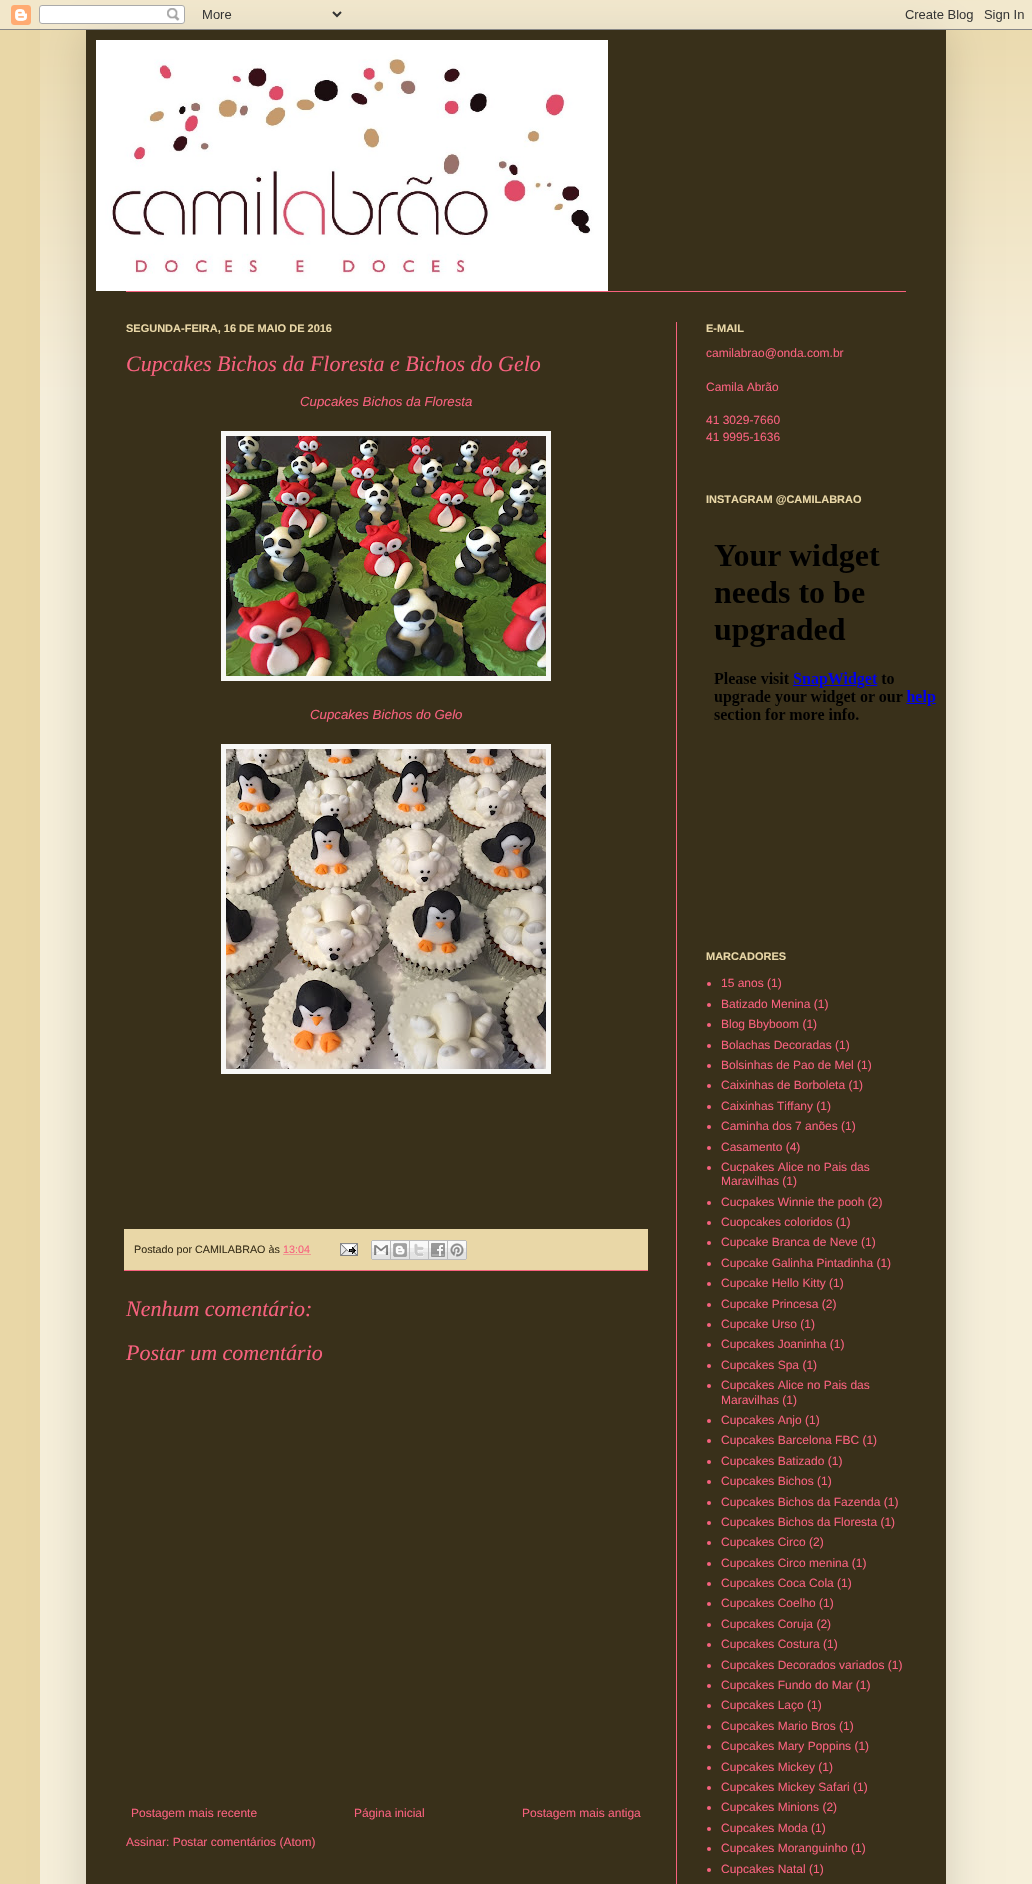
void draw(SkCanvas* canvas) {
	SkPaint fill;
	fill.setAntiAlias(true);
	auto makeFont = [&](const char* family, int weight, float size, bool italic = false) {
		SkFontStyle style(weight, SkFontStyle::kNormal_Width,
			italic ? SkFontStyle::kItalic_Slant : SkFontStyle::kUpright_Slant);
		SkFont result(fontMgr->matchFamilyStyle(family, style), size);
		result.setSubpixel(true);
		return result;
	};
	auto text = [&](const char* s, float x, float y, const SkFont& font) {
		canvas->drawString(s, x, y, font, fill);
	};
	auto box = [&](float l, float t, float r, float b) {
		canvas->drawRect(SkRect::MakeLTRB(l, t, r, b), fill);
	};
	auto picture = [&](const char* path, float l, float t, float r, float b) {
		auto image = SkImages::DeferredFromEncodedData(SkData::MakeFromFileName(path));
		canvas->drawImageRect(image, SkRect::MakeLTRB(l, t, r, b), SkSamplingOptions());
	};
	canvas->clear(0xFFE9D7A7);
	picture("image1.png", 40, 0, 1032, 400);
	fill.setColor(0xFFF6EFDA);
	box(40, 400, 1032, 1884);
	fill.setColor(0x26000000);
	fill.setMaskFilter(SkMaskFilter::MakeBlur(kNormal_SkBlurStyle, 20));
	canvas->drawRect(SkRect::MakeLTRB(86, 30, 946, 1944), fill);
	fill.setMaskFilter(nullptr);
	picture("image0.png", 0, 0, 1032, 30);
	fill.setColor(0xFF39301A);
	box(86, 30, 946, 1884);
	picture("image2.png", 96, 40, 608, 291);
	fill.setColor(0xFFF8617E);
	box(126, 291, 906, 292);
	box(676, 322, 677, 1884);
	fill.setColor(0xFFF8F8F6);
	box(221, 431, 551, 681);
	picture("image3.png", 226, 436, 546, 676);
	box(221, 744, 551, 1074);
	picture("image4.png", 226, 749, 546, 1069);
	fill.setColor(0xFFE9D7A7);
	box(124, 1229, 648, 1270);
	fill.setColor(0xFFF8617E);
	box(124, 1270, 648, 1271);
	fill.setStyle(SkPaint::kStroke_Style);
	fill.setStrokeWidth(1);
	fill.setPathEffect(SkDashPathEffect::Make({{1, 1}}, 0));
	canvas->drawPath(SkPathBuilder().moveTo(283.5f, 1254.5f).lineTo(310.5f, 1254.5f).detach(), fill);
	fill.setPathEffect(nullptr);
	picture("image5.png", 340, 1243, 358, 1256);
	picture("image6.png", 371, 1240, 391, 1260);
	picture("image7.png", 391, 1240, 410, 1260);
	picture("image8.png", 410, 1240, 429, 1260);
	picture("image9.png", 429, 1240, 448, 1260);
	picture("image10.png", 448, 1240, 467, 1260);
	picture("image11.png", 714, 544, 936, 720);
	fill.setStyle(SkPaint::kFill_Style);
	canvas->drawCircle(709, 984, 2, fill);
	canvas->drawCircle(709, 1005, 2, fill);
	canvas->drawCircle(709, 1025, 2, fill);
	canvas->drawCircle(709, 1046, 2, fill);
	canvas->drawCircle(709, 1066, 2, fill);
	canvas->drawCircle(709, 1086, 2, fill);
	canvas->drawCircle(709, 1107, 2, fill);
	canvas->drawCircle(709, 1127, 2, fill);
	canvas->drawCircle(709, 1148, 2, fill);
	canvas->drawCircle(709, 1168, 2, fill);
	canvas->drawCircle(709, 1203, 2, fill);
	canvas->drawCircle(709, 1223, 2, fill);
	canvas->drawCircle(709, 1243, 2, fill);
	canvas->drawCircle(709, 1264, 2, fill);
	canvas->drawCircle(709, 1284, 2, fill);
	canvas->drawCircle(709, 1305, 2, fill);
	canvas->drawCircle(709, 1325, 2, fill);
	canvas->drawCircle(709, 1345, 2, fill);
	canvas->drawCircle(709, 1366, 2, fill);
	canvas->drawCircle(709, 1386, 2, fill);
	canvas->drawCircle(709, 1421, 2, fill);
	canvas->drawCircle(709, 1441, 2, fill);
	canvas->drawCircle(709, 1462, 2, fill);
	canvas->drawCircle(709, 1482, 2, fill);
	canvas->drawCircle(709, 1503, 2, fill);
	canvas->drawCircle(709, 1523, 2, fill);
	canvas->drawCircle(709, 1543, 2, fill);
	canvas->drawCircle(709, 1564, 2, fill);
	canvas->drawCircle(709, 1584, 2, fill);
	canvas->drawCircle(709, 1604, 2, fill);
	canvas->drawCircle(709, 1625, 2, fill);
	canvas->drawCircle(709, 1645, 2, fill);
	canvas->drawCircle(709, 1666, 2, fill);
	canvas->drawCircle(709, 1686, 2, fill);
	canvas->drawCircle(709, 1706, 2, fill);
	canvas->drawCircle(709, 1727, 2, fill);
	canvas->drawCircle(709, 1747, 2, fill);
	canvas->drawCircle(709, 1768, 2, fill);
	canvas->drawCircle(709, 1788, 2, fill);
	canvas->drawCircle(709, 1808, 2, fill);
	canvas->drawCircle(709, 1829, 2, fill);
	canvas->drawCircle(709, 1849, 2, fill);
	canvas->drawCircle(709, 1870, 2, fill);
	auto font1 = makeFont("Liberation Sans", 700, 11);
	fill.setColor(0xFFE9D7A7);
	text("SEGUNDA-FEIRA, 16 DE MAIO DE 2016", 126, 332, font1);
	auto font2 = makeFont("Liberation Serif", 400, 22, true);
	fill.setColor(0xFFF8617E);
	text("Cupcakes Bichos da Floresta e Bichos do Gelo", 126, 371, font2);
	auto font3 = makeFont("Liberation Sans", 400, 13.25f, true);
	text("Cupcakes Bichos da Floresta", 300, 406, font3);
	text("Cupcakes Bichos do Gelo", 310, 719, font3);
	auto font4 = makeFont("Liberation Sans", 400, 10.75f);
	fill.setColor(0xFF39301A);
	text("Postado por CAMILABRAO às", 134, 1253, font4);
	fill.setColor(0xFFF8617E);
	text("13:04", 283, 1253, font4);
	text("Nenhum comentário:", 126, 1316, font2);
	text("Postar um comentário", 126, 1360, font2);
	auto font5 = makeFont("Liberation Sans", 400, 12);
	text("Postagem mais recente", 131, 1817, font5);
	text("Página inicial", 354, 1817, font5);
	text("Postagem mais antiga", 522, 1817, font5);
	text("Assinar: Postar comentários (Atom)", 126, 1846, font5);
	fill.setColor(0xFFE9D7A7);
	text("E-MAIL", 706, 332, font1);
	fill.setColor(0xFFF8617E);
	text("camilabrao@onda.com.br", 706, 357, font5);
	text("Camila Abrão", 706, 391, font5);
	text("41 3029-7660", 706, 424, font5);
	text("41 9995-1636", 706, 441, font5);
	fill.setColor(0xFFE9D7A7);
	text("INSTAGRAM @CAMILABRAO", 706, 503, font1);
	text("MARCADORES", 706, 960, font1);
	fill.setColor(0xFFF8617E);
	text("15 anos (1)", 721, 987, font5);
	text("Batizado Menina (1)", 721, 1008, font5);
	text("Blog Bbyboom (1)", 721, 1028, font5);
	text("Bolachas Decoradas (1)", 721, 1049, font5);
	text("Bolsinhas de Pao de Mel (1)", 721, 1069, font5);
	text("Caixinhas de Borboleta (1)", 721, 1089, font5);
	text("Caixinhas Tiffany (1)", 721, 1110, font5);
	text("Caminha dos 7 anões (1)", 721, 1130, font5);
	text("Casamento (4)", 721, 1151, font5);
	text("Cucpakes Alice no Pais das", 721, 1171, font5);
	text("Maravilhas (1)", 721, 1185, font5);
	text("Cucpakes Winnie the pooh (2)", 721, 1206, font5);
	text("Cuopcakes coloridos (1)", 721, 1226, font5);
	text("Cupcake Branca de Neve (1)", 721, 1246, font5);
	text("Cupcake Galinha Pintadinha (1)", 721, 1267, font5);
	text("Cupcake Hello Kitty (1)", 721, 1287, font5);
	text("Cupcake Princesa (2)", 721, 1308, font5);
	text("Cupcake Urso (1)", 721, 1328, font5);
	text("Cupcakes Joaninha (1)", 721, 1348, font5);
	text("Cupcakes Spa (1)", 721, 1369, font5);
	text("Cupcakes Alice no Pais das", 721, 1389, font5);
	text("Maravilhas (1)", 721, 1404, font5);
	text("Cupcakes Anjo (1)", 721, 1424, font5);
	text("Cupcakes Barcelona FBC (1)", 721, 1444, font5);
	text("Cupcakes Batizado (1)", 721, 1465, font5);
	text("Cupcakes Bichos (1)", 721, 1485, font5);
	text("Cupcakes Bichos da Fazenda (1)", 721, 1506, font5);
	text("Cupcakes Bichos da Floresta (1)", 721, 1526, font5);
	text("Cupcakes Circo (2)", 721, 1546, font5);
	text("Cupcakes Circo menina (1)", 721, 1567, font5);
	text("Cupcakes Coca Cola (1)", 721, 1587, font5);
	text("Cupcakes Coelho (1)", 721, 1607, font5);
	text("Cupcakes Coruja (2)", 721, 1628, font5);
	text("Cupcakes Costura (1)", 721, 1648, font5);
	text("Cupcakes Decorados variados (1)", 721, 1669, font5);
	text("Cupcakes Fundo do Mar (1)", 721, 1689, font5);
	text("Cupcakes Laço (1)", 721, 1709, font5);
	text("Cupcakes Mario Bros (1)", 721, 1730, font5);
	text("Cupcakes Mary Poppins (1)", 721, 1750, font5);
	text("Cupcakes Mickey (1)", 721, 1771, font5);
	text("Cupcakes Mickey Safari (1)", 721, 1791, font5);
	text("Cupcakes Minions (2)", 721, 1811, font5);
	text("Cupcakes Moda (1)", 721, 1832, font5);
	text("Cupcakes Moranguinho (1)", 721, 1852, font5);
	text("Cupcakes Natal (1)", 721, 1873, font5);
}
